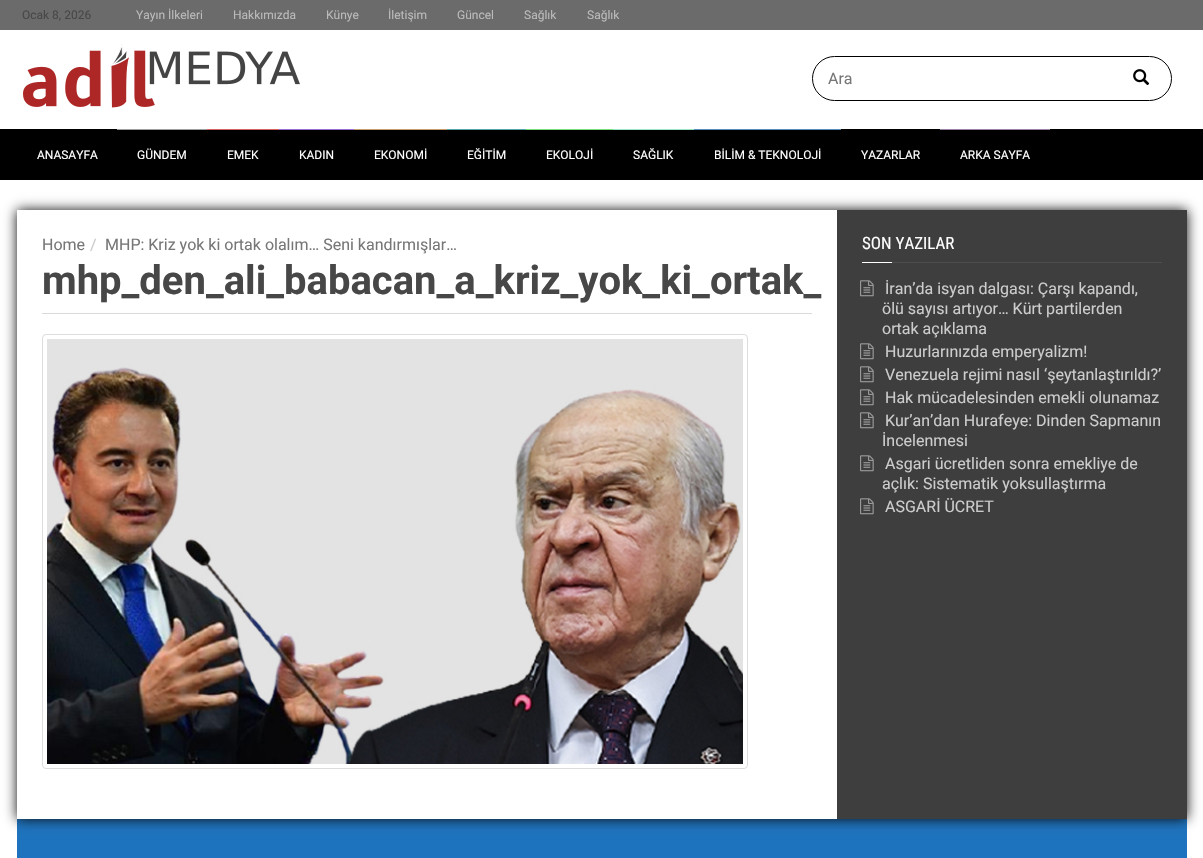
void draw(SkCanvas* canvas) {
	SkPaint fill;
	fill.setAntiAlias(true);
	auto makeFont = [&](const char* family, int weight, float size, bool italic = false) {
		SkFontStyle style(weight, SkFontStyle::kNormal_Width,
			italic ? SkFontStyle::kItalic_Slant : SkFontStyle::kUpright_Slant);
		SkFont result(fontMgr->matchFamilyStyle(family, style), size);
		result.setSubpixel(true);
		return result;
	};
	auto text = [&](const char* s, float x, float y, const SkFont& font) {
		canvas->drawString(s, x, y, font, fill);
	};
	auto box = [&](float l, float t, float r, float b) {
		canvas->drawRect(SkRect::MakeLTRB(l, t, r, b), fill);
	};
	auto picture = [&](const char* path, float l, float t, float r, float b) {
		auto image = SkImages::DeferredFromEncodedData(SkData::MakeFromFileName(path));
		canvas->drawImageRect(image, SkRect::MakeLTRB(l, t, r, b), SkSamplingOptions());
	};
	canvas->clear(0xFFFFFFFF);
	fill.setColor(0xFF6B6B6B);
	box(0, 0, 1203, 30);
	fill.setColor(0xFF000000);
	box(0, 129, 1203, 180);
	picture("image0.png", 23, 44, 300, 109);
	fill.setStyle(SkPaint::kStroke_Style);
	fill.setStrokeWidth(1);
	canvas->drawRoundRect(SkRect::MakeLTRB(812.5f, 56.5f, 1171.5f, 100.5f), 22, 22, fill);
	picture("image1.png", 1133, 69, 1150, 86);
	fill.setStyle(SkPaint::kFill_Style);
	fill.setColor(0xFF9E9E9E);
	box(117, 129, 207, 130);
	fill.setColor(0xFFD66262);
	box(207, 129, 279, 130);
	fill.setColor(0xFF966FD6);
	box(279, 129, 354, 130);
	fill.setColor(0xFFC69C6E);
	box(354, 129, 447, 130);
	fill.setColor(0xFF54A5A5);
	box(447, 129, 526, 130);
	fill.setColor(0xFF77DD77);
	box(526, 129, 613, 130);
	fill.setColor(0xFF97E5C3);
	box(613, 129, 694, 130);
	fill.setColor(0xFF568EBF);
	box(694, 129, 841, 130);
	fill.setColor(0xFF9C81A8);
	box(940, 129, 1050, 130);
	fill.setColor(0xFF1E73BE);
	box(17, 819, 1187, 858);
	canvas->save();
	canvas->clipPath(SkPathBuilder(SkPathFillType::kEvenOdd).moveTo(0, 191).lineTo(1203, 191).lineTo(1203, 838).lineTo(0, 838).close().moveTo(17, 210).lineTo(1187, 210).lineTo(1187, 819).lineTo(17, 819).close().detach(), true);
	fill.setColor(0xFF0A0A0A);
	fill.setMaskFilter(SkMaskFilter::MakeBlur(kNormal_SkBlurStyle, 6));
	canvas->drawRect(SkRect::MakeLTRB(17, 210, 1187, 819), fill);
	fill.setMaskFilter(nullptr);
	canvas->restore();
	fill.setColor(0xFFDADADA);
	box(42, 313, 812, 314);
	fill.setStyle(SkPaint::kStroke_Style);
	fill.setColor(0xFFDDDDDD);
	canvas->drawRoundRect(SkRect::MakeLTRB(42.5f, 334.5f, 747.5f, 768.5f), 3.5f, 3.5f, fill);
	picture("image2.png", 47, 339, 743, 764);
	fill.setStyle(SkPaint::kFill_Style);
	fill.setColor(0xFF3E3E3E);
	box(837, 210, 1187, 819);
	fill.setColor(0xFF4E4E4E);
	box(892, 262, 1162, 263);
	fill.setColor(0xFFFFFFFF);
	box(862, 262, 892, 263);
	picture("image3.png", 860, 280, 874, 297);
	picture("image3.png", 860, 343, 874, 360);
	picture("image3.png", 860, 366, 874, 383);
	picture("image3.png", 860, 389, 874, 406);
	picture("image3.png", 860, 412, 874, 429);
	picture("image3.png", 860, 455, 874, 472);
	picture("image3.png", 860, 498, 874, 515);
	auto font1 = makeFont("Roboto", 400, 12);
	fill.setColor(0xFF474747);
	text("Ocak 8, 2026", 22, 19, font1);
	fill.setColor(0xFFBBBBBB);
	text("Yayın İlkeleri", 136, 19, font1);
	text("Hakkımızda", 233, 19, font1);
	text("Künye", 326, 19, font1);
	text("İletişim", 388, 19, font1);
	text("Güncel", 457, 19, font1);
	text("Sağlık", 524, 19, font1);
	text("Sağlık", 587, 19, font1);
	auto font2 = makeFont("Roboto", 400, 16);
	fill.setColor(0xFF777777);
	text("Ara", 828, 84, font2);
	fill.setColor(0xFFFFFFFF);
	text("ANASAYFA", 37, 159, font1);
	text("GÜNDEM", 137, 159, font1);
	text("EMEK", 227, 159, font1);
	text("KADIN", 299, 159, font1);
	text("EKONOMİ", 374, 159, font1);
	text("EĞİTİM", 467, 159, font1);
	text("EKOLOJİ", 546, 159, font1);
	text("SAĞLIK", 633, 159, font1);
	text("BİLİM & TEKNOLOJİ", 714, 159, font1);
	text("YAZARLAR", 861, 159, font1);
	text("ARKA SAYFA", 960, 159, font1);
	fill.setColor(0xFF777777);
	text("Home", 42, 250, font2);
	fill.setColor(0xFFCCCCCC);
	text("/", 90, 250, font2);
	fill.setColor(0xFF777777);
	text("MHP: Kriz yok ki ortak olalım… Seni kandırmışlar…", 105, 250, font2);
	auto font3 = makeFont("Roboto", 700, 40);
	fill.setColor(0xFF474747);
	text("mhp_den_ali_babacan_a_kriz_yok_ki_ortak_", 42, 294, font3);
	auto font4 = makeFont("Roboto Condensed", 400, 17);
	fill.setColor(0xFFFFFFFF);
	text("SON YAZILAR", 862, 249, font4);
	fill.setColor(0xFFCCCCCC);
	text("İran’da isyan dalgası: Çarşı kapandı,", 885, 294, font2);
	text("ölü sayısı artıyor… Kürt partilerden", 882, 314, font2);
	text("ortak açıklama", 882, 334, font2);
	text("Huzurlarınızda emperyalizm!", 885, 357, font2);
	text("Venezuela rejimi nasıl ‘şeytanlaştırıldı?’", 885, 380, font2);
	text("Hak mücadelesinden emekli olunamaz", 885, 403, font2);
	text("Kur’an’dan Hurafeye: Dinden Sapmanın", 885, 426, font2);
	text("İncelenmesi", 882, 446, font2);
	text("Asgari ücretliden sonra emekliye de", 885, 469, font2);
	text("açlık: Sistematik yoksullaştırma", 882, 489, font2);
	text("ASGARİ ÜCRET", 885, 512, font2);
}
